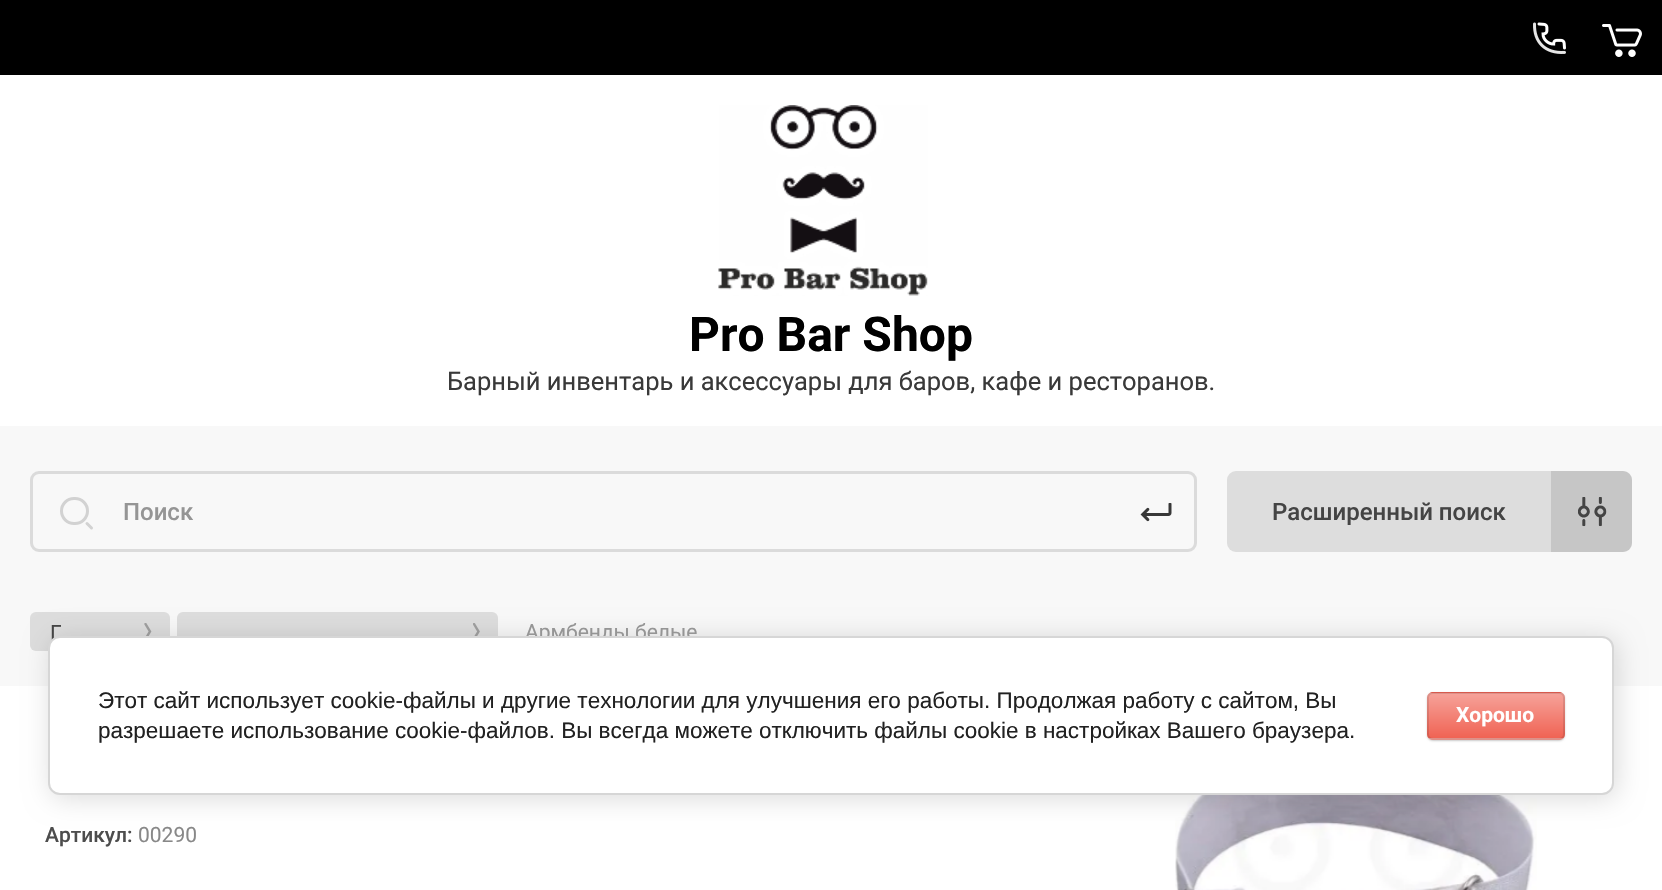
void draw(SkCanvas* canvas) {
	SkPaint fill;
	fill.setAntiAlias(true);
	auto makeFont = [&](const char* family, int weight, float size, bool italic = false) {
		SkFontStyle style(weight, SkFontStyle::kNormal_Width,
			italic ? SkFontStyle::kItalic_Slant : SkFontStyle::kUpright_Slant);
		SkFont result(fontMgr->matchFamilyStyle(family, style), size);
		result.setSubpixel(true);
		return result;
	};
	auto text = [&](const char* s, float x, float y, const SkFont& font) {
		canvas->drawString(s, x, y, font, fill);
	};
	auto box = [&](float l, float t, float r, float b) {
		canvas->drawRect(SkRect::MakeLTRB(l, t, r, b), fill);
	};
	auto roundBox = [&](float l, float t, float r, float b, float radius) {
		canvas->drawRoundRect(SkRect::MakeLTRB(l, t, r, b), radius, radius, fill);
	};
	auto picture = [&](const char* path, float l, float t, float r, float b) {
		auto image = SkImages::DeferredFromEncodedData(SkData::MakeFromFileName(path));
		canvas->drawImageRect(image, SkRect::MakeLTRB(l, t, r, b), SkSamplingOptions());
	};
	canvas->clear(0xFFF8F8F8);
	fill.setColor(0xFF000000);
	box(0, 0, 1662, 75);
	picture("image0.png", 1533, 22, 1566, 54);
	picture("image1.png", 1602, 24, 1642, 57);
	fill.setColor(0xFFFFFFFF);
	box(0, 75, 1662, 426);
	picture("image2.png", 718, 105, 928, 296);
	fill.setStyle(SkPaint::kStroke_Style);
	fill.setStrokeWidth(3);
	fill.setColor(0xFFDBDBDB);
	canvas->drawRoundRect(SkRect::MakeLTRB(31.5f, 472.5f, 1195.5f, 550.5f), 7.5f, 7.5f, fill);
	fill.setColor(0xFFD2D2D2);
	canvas->drawRoundRect(SkRect::MakeLTRB(61.5f, 498.5f, 87.5f, 523.5f), 12.5f, 12.5f, fill);
	fill.setStrokeCap(SkPaint::kRound_Cap);
	canvas->drawPath(SkPathBuilder().moveTo(87, 523.5f).lineTo(91.5f, 528).detach(), fill);
	picture("image3.png", 1140, 503, 1172, 522);
	fill.setStyle(SkPaint::kFill_Style);
	fill.setColor(0xFFDDDDDD);
	roundBox(1227, 471, 1632, 552, 9);
	fill.setColor(0x26444444);
	canvas->drawPath(SkPathBuilder().moveTo(1551, 471).lineTo(1623, 471).cubicTo(1628, 471, 1632, 475, 1632, 480).lineTo(1632, 543).cubicTo(1632, 548, 1628, 552, 1623, 552).lineTo(1551, 552).close().detach(), fill);
	picture("image4.png", 1578, 497, 1607, 527);
	fill.setColor(0xFFDDDDDD);
	roundBox(30, 612, 170, 651, 6);
	picture("image5.png", 144, 623, 152, 636);
	roundBox(177, 612, 498, 651, 6);
	picture("image6.png", 473, 623, 480, 636);
	fill.setColor(0xFFFFFFFF);
	box(0, 686, 1662, 890);
	picture("image7.png", 1175, 795, 1537, 890);
	fill.setColor(0x24000000);
	fill.setMaskFilter(SkMaskFilter::MakeBlur(kNormal_SkBlurStyle, 13.5f));
	canvas->drawRoundRect(SkRect::MakeLTRB(51, 639, 1617, 798), 12, 12, fill);
	fill.setMaskFilter(nullptr);
	auto font1 = makeFont("Roboto", 700, 48);
	fill.setColor(0xFF000000);
	text("Pro Bar Shop", 689, 351, font1);
	auto font2 = makeFont("Roboto", 400, 25.5f);
	fill.setColor(0xFF393939);
	text("Барный инвентарь и аксессуары для баров, кафе и ресторанов.", 447, 390, font2);
	auto font3 = makeFont("Roboto", 500, 24);
	fill.setColor(0xFF959595);
	text("Поиск", 123, 520, font3);
	fill.setColor(0xFF444444);
	text("Расширенный поиск", 1272, 520, font3);
	auto font4 = makeFont("Roboto", 400, 21);
	text("Г", 50, 640, font4);
	fill.setColor(0xFF959595);
	text("Армбенды белые", 525, 639, font4);
	auto font5 = makeFont("Roboto", 500, 21);
	fill.setColor(0xFF4D4D4D);
	text("Артикул:", 45, 842, font5);
	fill.setColor(0xFF888888);
	text("00290", 138, 842, font4);
	fill.setColor(0xFFFFFFFF);
	canvas->drawRoundRect(SkRect::MakeLTRB(49, 637, 1613, 794), 11, 11, fill);
	fill.setStyle(SkPaint::kStroke_Style);
	fill.setStrokeWidth(2);
	fill.setStrokeCap(SkPaint::kButt_Cap);
	fill.setColor(0xFFD6D6D6);
	canvas->drawRoundRect(SkRect::MakeLTRB(49, 637, 1613, 794), 11, 11, fill);
	auto font6 = makeFont("Liberation Sans", 400, 22.5f);
	fill.setStyle(SkPaint::kFill_Style);
	fill.setColor(0xFF212121);
	text("Этот сайт использует cookie-файлы и другие технологии для улучшения его работы. Продолжая работу с сайтом, Вы", 98, 708, font6);
	text("разрешаете использование cookie-файлов. Вы всегда можете отключить файлы cookie в настройках Вашего браузера.", 98, 738, font6);
	fill.setColor(0x33000000);
	fill.setMaskFilter(SkMaskFilter::MakeBlur(kNormal_SkBlurStyle, 1));
	canvas->drawRoundRect(SkRect::MakeLTRB(1427, 693, 1565, 741), 6, 6, fill);
	fill.setMaskFilter(nullptr);
	canvas->save();
	canvas->clipPath(SkPathBuilder().moveTo(1433, 692).lineTo(1559, 692).cubicTo(1562.5f, 692, 1565, 694.5f, 1565, 698).lineTo(1565, 734).cubicTo(1565, 737.5f, 1562.5f, 740, 1559, 740).lineTo(1433, 740).cubicTo(1429.5f, 740, 1427, 737.5f, 1427, 734).lineTo(1427, 698).cubicTo(1427, 694.5f, 1429.5f, 692, 1433, 692).close().detach(), true);
	{
		const SkColor colors[] = {0xFFF6A39A, 0xFFF06354};
		const float stops[] = {0, 1};
		const SkPoint ends[] = {{1496, 648}, {1496, 693}};
		fill.setShader(SkGradientShader::MakeLinear(ends, colors, stops, 2, SkTileMode::kClamp));
		fill.setAlpha(255);
	}
	box(1427, 692, 1565, 693);
	{
		const SkColor colors[] = {0xFFF6A39A, 0xFFF06354};
		const float stops[] = {0, 1};
		const SkPoint ends[] = {{1496, 693}, {1496, 738}};
		fill.setShader(SkGradientShader::MakeLinear(ends, colors, stops, 2, SkTileMode::kClamp));
		fill.setAlpha(255);
	}
	box(1427, 693, 1565, 738);
	{
		const SkColor colors[] = {0xFFF6A39A, 0xFFF06354};
		const float stops[] = {0, 1};
		const SkPoint ends[] = {{1496, 738}, {1496, 783}};
		fill.setShader(SkGradientShader::MakeLinear(ends, colors, stops, 2, SkTileMode::kClamp));
		fill.setAlpha(255);
	}
	box(1427, 738, 1565, 740);
	canvas->restore();
	fill.setStyle(SkPaint::kStroke_Style);
	fill.setShader(nullptr);
	fill.setColor(0x1A000000);
	canvas->drawRoundRect(SkRect::MakeLTRB(1428, 693, 1564, 739), 5, 5, fill);
	auto font7 = makeFont("Roboto", 700, 21);
	fill.setStyle(SkPaint::kFill_Style);
	fill.setColor(0xFFFFFFFF);
	text("Хорошо", 1456, 722, font7);
}
